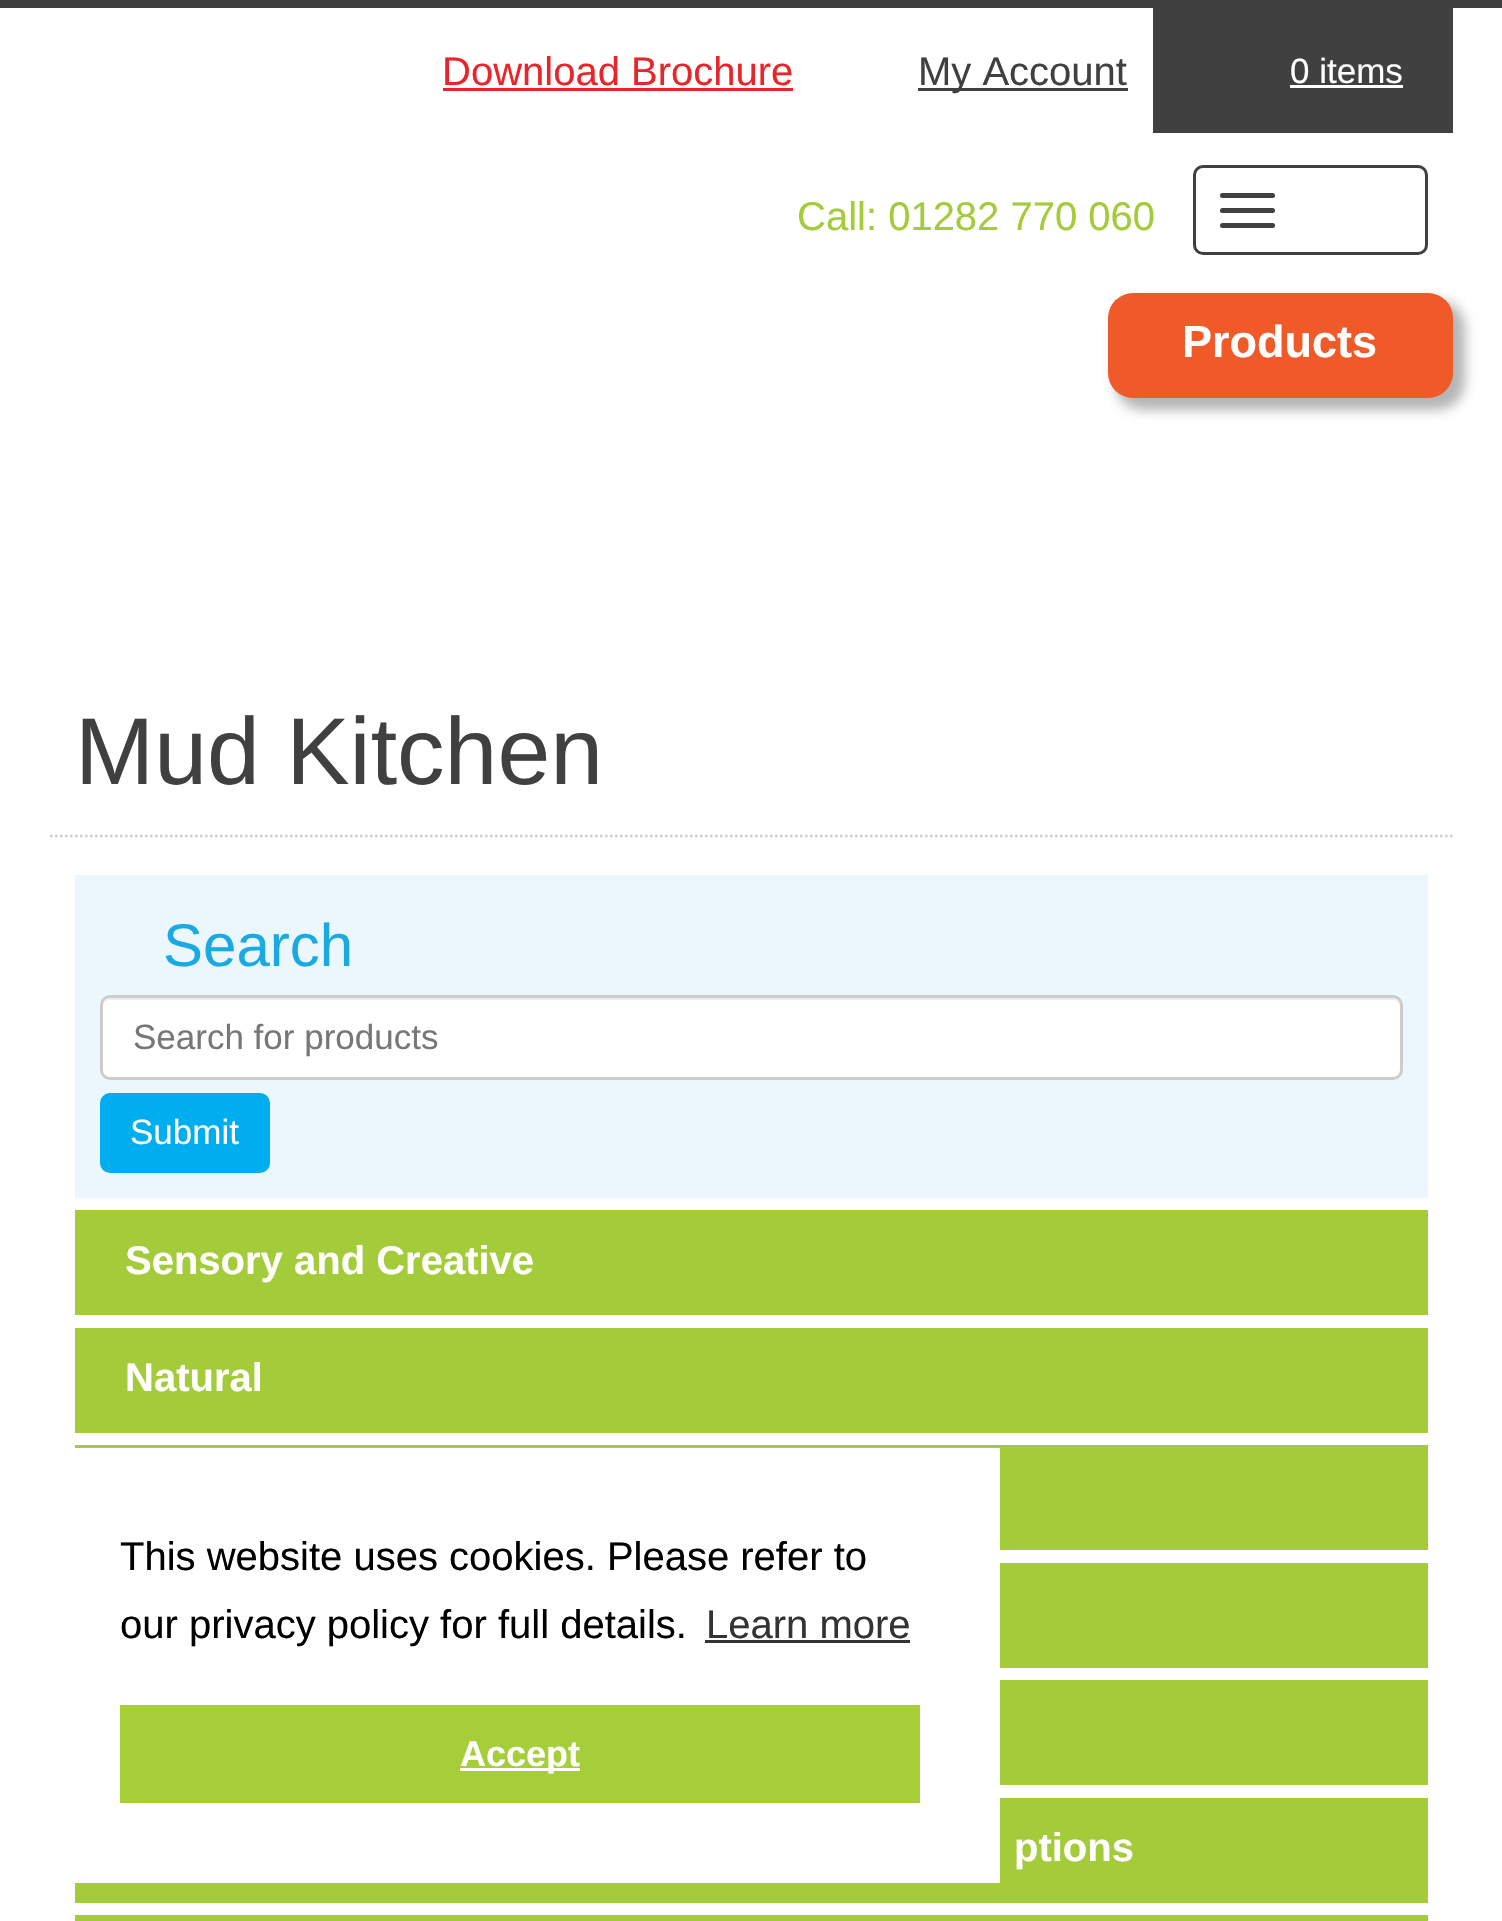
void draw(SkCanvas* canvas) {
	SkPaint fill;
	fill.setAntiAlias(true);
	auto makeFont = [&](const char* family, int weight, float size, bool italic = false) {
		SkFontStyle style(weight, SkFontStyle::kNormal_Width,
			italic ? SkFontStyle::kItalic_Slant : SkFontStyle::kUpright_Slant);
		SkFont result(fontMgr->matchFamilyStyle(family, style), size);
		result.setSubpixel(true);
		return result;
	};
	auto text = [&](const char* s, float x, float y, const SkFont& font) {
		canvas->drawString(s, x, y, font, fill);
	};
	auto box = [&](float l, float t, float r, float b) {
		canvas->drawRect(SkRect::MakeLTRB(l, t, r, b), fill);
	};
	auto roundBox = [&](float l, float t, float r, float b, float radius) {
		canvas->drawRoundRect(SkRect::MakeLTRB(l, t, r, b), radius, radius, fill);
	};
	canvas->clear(0xFFFFFFFF);
	fill.setColor(0xFF404041);
	box(0, 0, 1502, 8);
	fill.setColor(0xFFE7252B);
	box(443, 88, 793, 91);
	fill.setColor(0xFF404041);
	box(918, 88, 1128, 91);
	box(1153, 8, 1453, 133);
	fill.setColor(0xFFFFFFFF);
	box(1290, 85, 1403, 88);
	fill.setStyle(SkPaint::kStroke_Style);
	fill.setStrokeWidth(3);
	fill.setColor(0xFF404041);
	canvas->drawRoundRect(SkRect::MakeLTRB(1194.5f, 166.5f, 1426.5f, 253.5f), 8.5f, 8.5f, fill);
	fill.setStyle(SkPaint::kFill_Style);
	roundBox(1220, 193, 1275, 198, 2.5f);
	roundBox(1220, 208, 1275, 213, 2.5f);
	roundBox(1220, 223, 1275, 228, 2.5f);
	fill.setColor(0xFFB5B5B5);
	fill.setMaskFilter(SkMaskFilter::MakeBlur(kNormal_SkBlurStyle, 6));
	canvas->drawRoundRect(SkRect::MakeLTRB(1115, 300, 1465, 410), 28, 28, fill);
	fill.setMaskFilter(nullptr);
	fill.setColor(0xFFF05A28);
	roundBox(1108, 293, 1453, 398, 25);
	fill.setStyle(SkPaint::kStroke_Style);
	fill.setStrokeWidth(2.5f);
	fill.setColor(0xFFCCCCCC);
	fill.setPathEffect(SkDashPathEffect::Make({{2.5f, 2.5f}}, 0));
	canvas->drawPath(SkPathBuilder().moveTo(50, 836).lineTo(1452.5f, 836).detach(), fill);
	fill.setPathEffect(nullptr);
	fill.setStyle(SkPaint::kFill_Style);
	fill.setColor(0xFFEBF7FC);
	box(75, 875, 1428, 1198);
	fill.setColor(0xFFFFFFFF);
	roundBox(100, 995, 1403, 1080, 10);
	fill.setColor(0xFFECECEC);
	canvas->drawPath(SkPathBuilder().moveTo(110, 1000).lineTo(1392, 1000).cubicTo(1397, 1000, 1400, 1003, 1400, 1008).lineTo(1400, 1006).cubicTo(1400, 1002, 1396, 998, 1392, 998).lineTo(111, 998).cubicTo(108, 998, 105, 1000, 103, 1003).cubicTo(105, 1001, 108, 1000, 110, 1000).close().detach(), fill);
	fill.setStyle(SkPaint::kStroke_Style);
	fill.setStrokeWidth(3);
	fill.setColor(0xFFCCCCCC);
	canvas->drawRoundRect(SkRect::MakeLTRB(101.5f, 996.5f, 1401.5f, 1078.5f), 8.5f, 8.5f, fill);
	fill.setStyle(SkPaint::kFill_Style);
	fill.setColor(0xFF00ADEF);
	roundBox(100, 1093, 270, 1173, 10);
	fill.setColor(0xFFA3CB3A);
	box(75, 1210, 1428, 1315);
	box(75, 1328, 1428, 1433);
	box(75, 1445, 1428, 1550);
	box(1000, 1563, 1428, 1668);
	box(1000, 1680, 1428, 1785);
	box(75, 1798, 1428, 1903);
	box(75, 1915, 1428, 1921);
	fill.setColor(0xFFFFFFFF);
	box(75, 1448, 1000, 1883);
	fill.setColor(0xFF333333);
	box(705, 1640, 910, 1643);
	fill.setColor(0xFFA6CE39);
	box(120, 1705, 920, 1803);
	fill.setColor(0xFFFFFFFF);
	box(460, 1768, 580, 1771);
	auto font1 = makeFont("Liberation Sans", 400, 40);
	fill.setColor(0xFFE7252B);
	text("Download Brochure", 442, 85, font1);
	fill.setColor(0xFF404041);
	text("My Account", 918, 85, font1);
	auto font2 = makeFont("Liberation Sans", 400, 35);
	fill.setColor(0xFFFFFFFF);
	text("0 items", 1290, 83, font2);
	fill.setColor(0xFFA3CB3A);
	text("Call: 01282 770 060", 797, 230, font1);
	auto font3 = makeFont("Liberation Sans", 700, 45);
	fill.setColor(0xFFFFFFFF);
	text("Products", 1182, 357, font3);
	auto font4 = makeFont("Liberation Sans", 400, 95);
	fill.setColor(0xFF404041);
	text("Mud Kitchen", 75, 784, font4);
	auto font5 = makeFont("Liberation Sans", 400, 60);
	fill.setColor(0xFF1AA9E1);
	text("Search", 163, 966, font5);
	fill.setColor(0xFF777777);
	text("Search for products", 133, 1049, font2);
	fill.setColor(0xFFFFFFFF);
	text("Submit", 130, 1144, font2);
	auto font6 = makeFont("Liberation Sans", 700, 40);
	text("Sensory and Creative", 125, 1274, font6);
	text("Natural", 125, 1391, font6);
	text("ptions", 1014, 1861, font6);
	fill.setColor(0xFF000000);
	text("This website uses cookies. Please refer to", 120, 1570, font1);
	text("our privacy policy for full details.", 120, 1638, font1);
	fill.setColor(0xFF333333);
	text("Learn more", 706, 1638, font1);
	auto font7 = makeFont("Liberation Sans", 700, 36);
	fill.setColor(0xFFFFFFFF);
	text("Accept", 460, 1766, font7);
}
